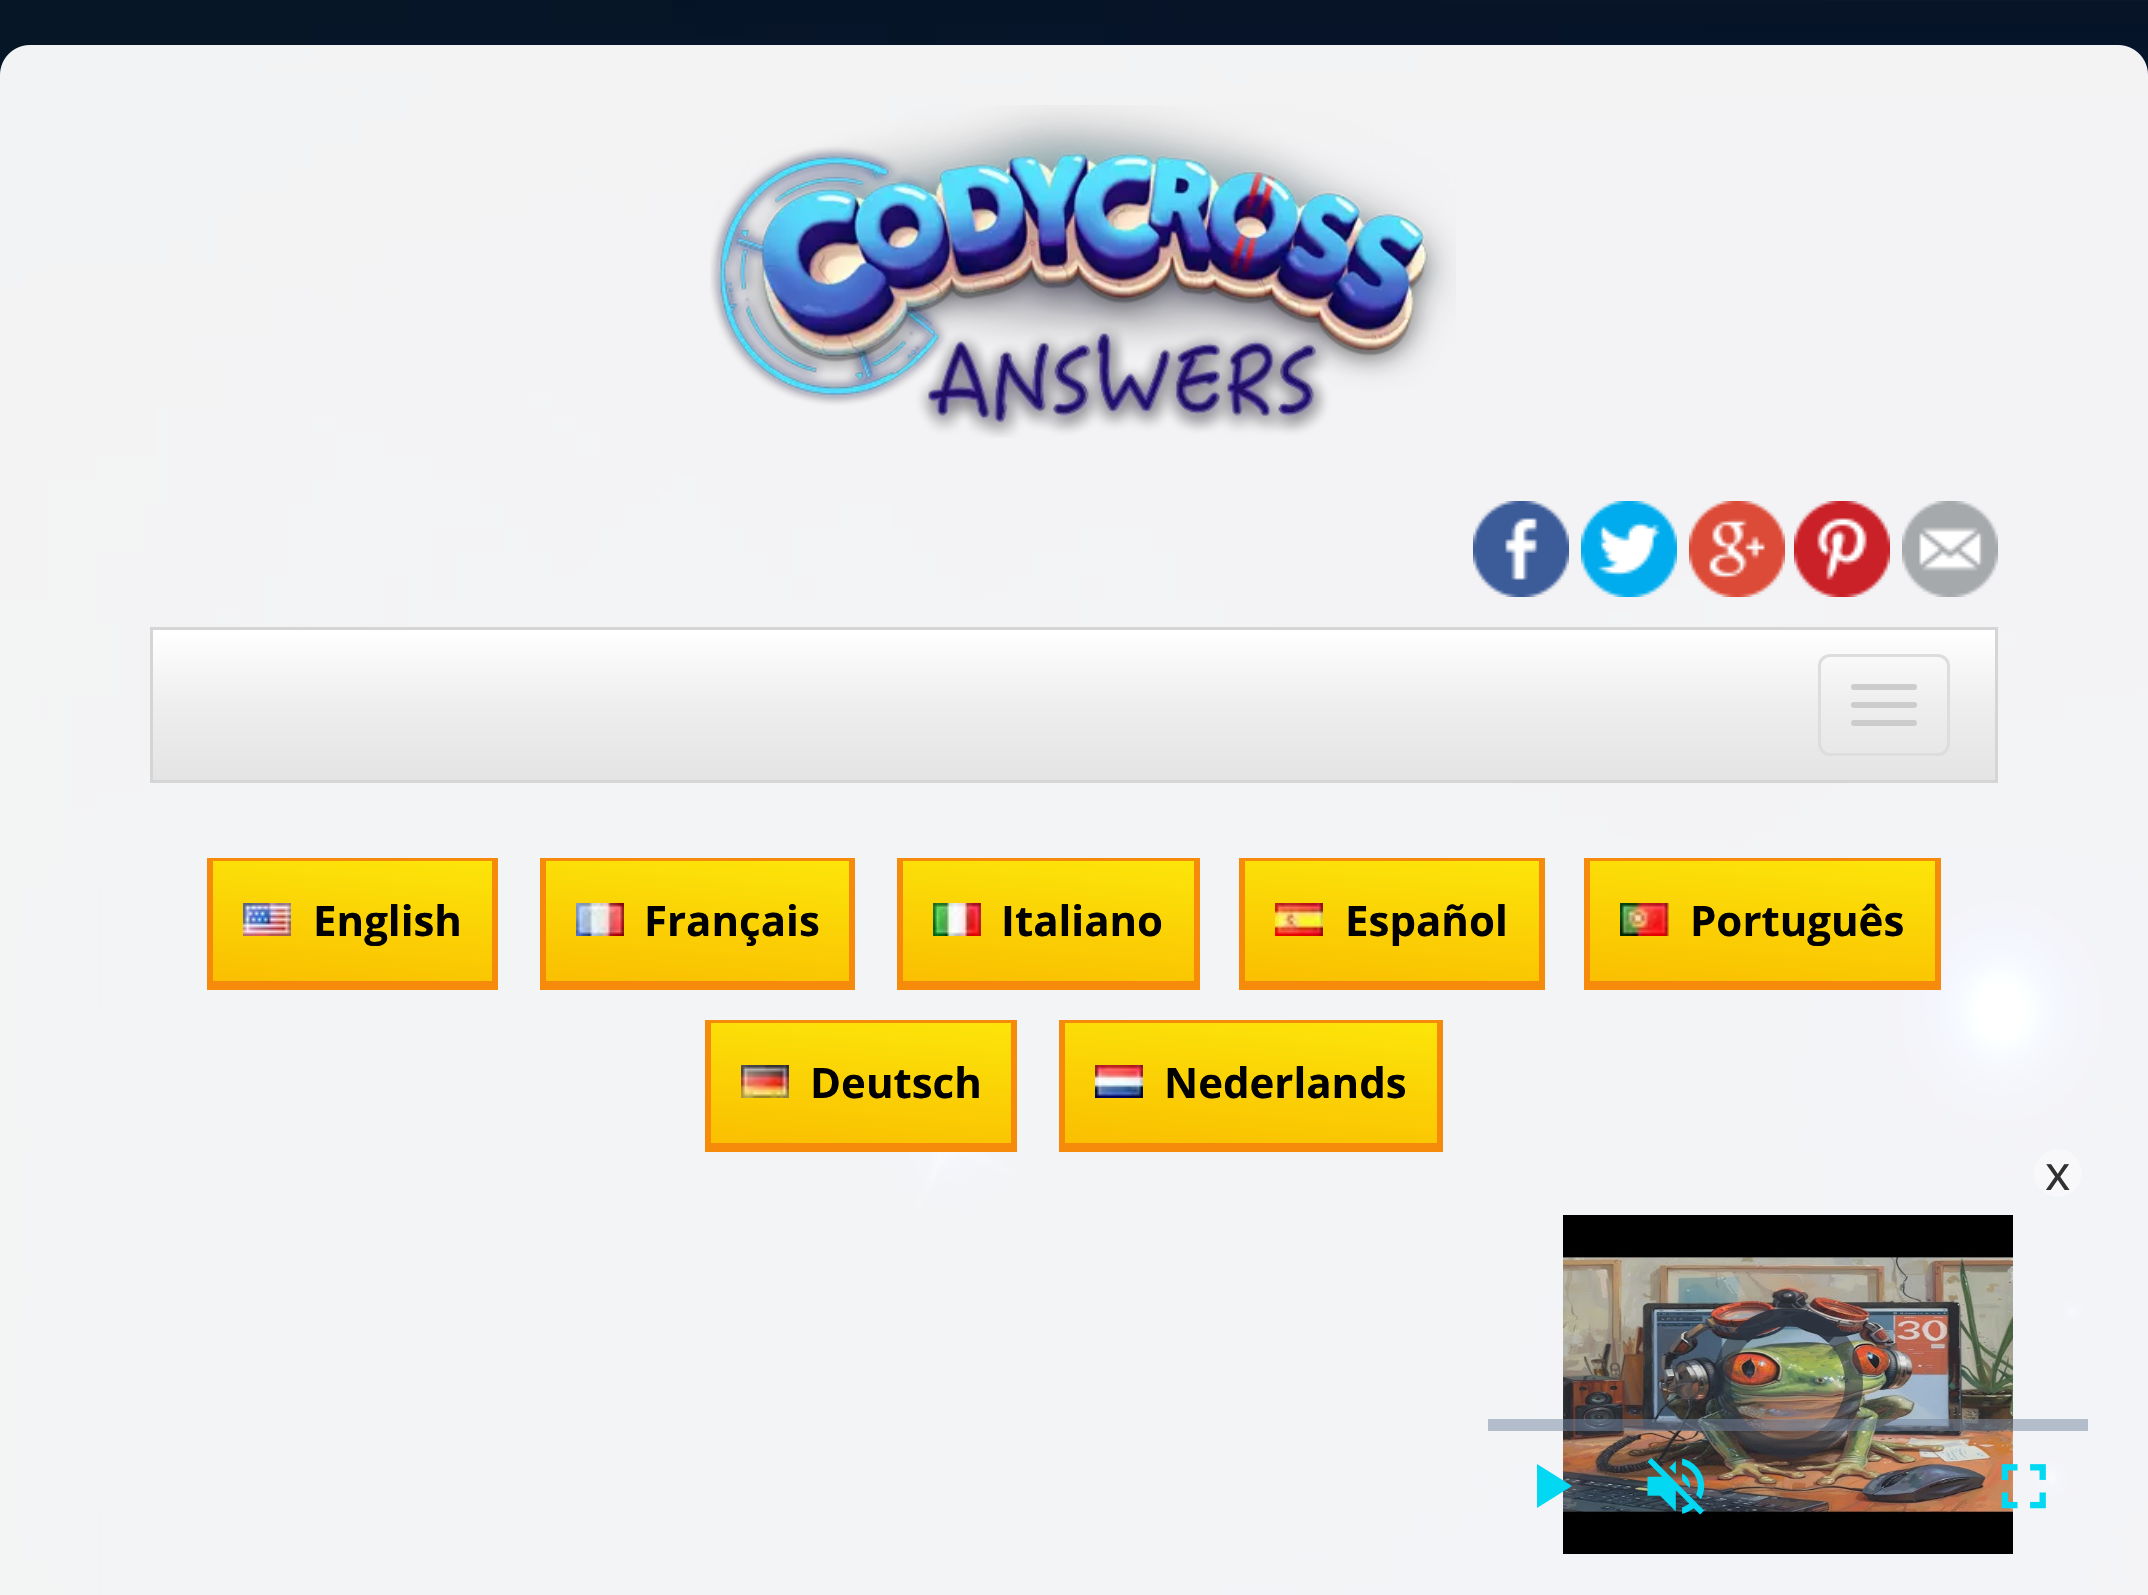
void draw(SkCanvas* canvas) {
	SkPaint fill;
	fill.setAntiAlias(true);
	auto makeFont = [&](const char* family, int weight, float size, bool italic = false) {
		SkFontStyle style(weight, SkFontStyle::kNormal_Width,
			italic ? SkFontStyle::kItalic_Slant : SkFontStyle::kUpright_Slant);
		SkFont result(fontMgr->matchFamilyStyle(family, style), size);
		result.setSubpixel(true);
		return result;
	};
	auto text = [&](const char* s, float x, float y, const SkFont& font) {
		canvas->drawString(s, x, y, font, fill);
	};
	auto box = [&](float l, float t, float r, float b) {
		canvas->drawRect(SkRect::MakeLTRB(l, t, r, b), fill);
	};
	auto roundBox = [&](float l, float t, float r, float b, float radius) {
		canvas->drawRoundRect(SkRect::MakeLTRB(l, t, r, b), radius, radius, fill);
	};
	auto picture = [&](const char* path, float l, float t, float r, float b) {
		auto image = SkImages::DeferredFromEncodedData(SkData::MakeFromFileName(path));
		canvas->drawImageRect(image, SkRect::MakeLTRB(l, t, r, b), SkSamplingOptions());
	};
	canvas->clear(0xFFFFFFFF);
	picture("image0.png", 0, 0, 2148, 1595);
	picture("image1.png", 710, 105, 1456, 438);
	picture("image2.png", 1473, 501, 1569, 597);
	picture("image3.png", 1581, 501, 1677, 597);
	picture("image4.png", 1689, 501, 1785, 597);
	picture("image5.png", 1794, 501, 1890, 597);
	picture("image6.png", 1902, 501, 1998, 597);
	{
		const SkColor colors[] = {0xFFFFFFFF, 0xFFEEEEEE, 0xFFE4E4E4};
		const float stops[] = {0, 0.5f, 1};
		const SkPoint ends[] = {{1074, 630}, {1074, 780}};
		fill.setShader(SkGradientShader::MakeLinear(ends, colors, stops, 3, SkTileMode::kClamp));
		fill.setAlpha(255);
	}
	box(153, 630, 1995, 780);
	fill.setStyle(SkPaint::kStroke_Style);
	fill.setStrokeWidth(3);
	fill.setShader(nullptr);
	fill.setColor(0xFFD5D5D5);
	canvas->drawRect(SkRect::MakeLTRB(151.5f, 628.5f, 1996.5f, 781.5f), fill);
	fill.setColor(0xFFDDDDDD);
	canvas->drawRoundRect(SkRect::MakeLTRB(1819.5f, 655.5f, 1948.5f, 754.5f), 10.5f, 10.5f, fill);
	fill.setStyle(SkPaint::kFill_Style);
	fill.setColor(0xFFCCCCCC);
	roundBox(1851, 684, 1917, 690, 3);
	roundBox(1851, 702, 1917, 708, 3);
	roundBox(1851, 720, 1917, 726, 3);
	{
		const SkColor colors[] = {0xFFFCE509, 0xFFFABF01};
		const float stops[] = {0, 1};
		const SkPoint ends[] = {{359, 849}, {346, 993}};
		fill.setShader(SkGradientShader::MakeLinear(ends, colors, stops, 2, SkTileMode::kClamp));
		fill.setAlpha(255);
	}
	box(213, 861, 492, 981);
	fill.setShader(nullptr);
	fill.setColor(0xFFF58A0B);
	box(207, 858, 498, 861);
	box(492, 858, 498, 981);
	box(213, 981, 498, 990);
	box(207, 858, 213, 990);
	picture("image7.png", 243, 903, 291, 936);
	{
		const SkColor colors[] = {0xFFFCE509, 0xFFFABF01};
		const float stops[] = {0, 1};
		const SkPoint ends[] = {{704, 848}, {691, 994}};
		fill.setShader(SkGradientShader::MakeLinear(ends, colors, stops, 2, SkTileMode::kClamp));
		fill.setAlpha(255);
	}
	box(546, 861, 849, 981);
	fill.setShader(nullptr);
	fill.setColor(0xFFF58A0B);
	box(540, 858, 855, 861);
	box(849, 858, 855, 981);
	box(546, 981, 855, 990);
	box(540, 858, 546, 990);
	picture("image8.png", 576, 903, 624, 936);
	{
		const SkColor colors[] = {0xFFFCE509, 0xFFFABF01};
		const float stops[] = {0, 1};
		const SkPoint ends[] = {{1055, 849}, {1042, 993}};
		fill.setShader(SkGradientShader::MakeLinear(ends, colors, stops, 2, SkTileMode::kClamp));
		fill.setAlpha(255);
	}
	box(903, 861, 1194, 981);
	fill.setShader(nullptr);
	fill.setColor(0xFFF58A0B);
	box(897, 858, 1200, 861);
	box(1194, 858, 1200, 981);
	box(903, 981, 1200, 990);
	box(897, 858, 903, 990);
	picture("image9.png", 933, 903, 981, 936);
	{
		const SkColor colors[] = {0xFFFCE509, 0xFFFABF01};
		const float stops[] = {0, 1};
		const SkPoint ends[] = {{1398, 849}, {1386, 993}};
		fill.setShader(SkGradientShader::MakeLinear(ends, colors, stops, 2, SkTileMode::kClamp));
		fill.setAlpha(255);
	}
	box(1245, 861, 1539, 981);
	fill.setShader(nullptr);
	fill.setColor(0xFFF58A0B);
	box(1239, 858, 1545, 861);
	box(1539, 858, 1545, 981);
	box(1245, 981, 1545, 990);
	box(1239, 858, 1245, 990);
	picture("image10.png", 1275, 903, 1323, 936);
	{
		const SkColor colors[] = {0xFFFCE509, 0xFFFABF01};
		const float stops[] = {0, 1};
		const SkPoint ends[] = {{1769, 846}, {1756, 996}};
		fill.setShader(SkGradientShader::MakeLinear(ends, colors, stops, 2, SkTileMode::kClamp));
		fill.setAlpha(255);
	}
	box(1590, 861, 1935, 981);
	fill.setShader(nullptr);
	fill.setColor(0xFFF58A0B);
	box(1584, 858, 1941, 861);
	box(1935, 858, 1941, 981);
	box(1590, 981, 1941, 990);
	box(1584, 858, 1590, 990);
	picture("image11.png", 1620, 903, 1669, 936);
	{
		const SkColor colors[] = {0xFFFCE509, 0xFFFABF01};
		const float stops[] = {0, 1};
		const SkPoint ends[] = {{867, 1010}, {855, 1156}};
		fill.setShader(SkGradientShader::MakeLinear(ends, colors, stops, 2, SkTileMode::kClamp));
		fill.setAlpha(255);
	}
	box(711, 1023, 1011, 1143);
	fill.setShader(nullptr);
	fill.setColor(0xFFF58A0B);
	box(705, 1020, 1017, 1023);
	box(1011, 1020, 1017, 1143);
	box(711, 1143, 1017, 1152);
	box(705, 1020, 711, 1152);
	picture("image12.png", 741, 1065, 789, 1098);
	{
		const SkColor colors[] = {0xFFFCE509, 0xFFFABF01};
		const float stops[] = {0, 1};
		const SkPoint ends[] = {{1258, 1007}, {1244, 1159}};
		fill.setShader(SkGradientShader::MakeLinear(ends, colors, stops, 2, SkTileMode::kClamp));
		fill.setAlpha(255);
	}
	box(1065, 1023, 1437, 1143);
	fill.setShader(nullptr);
	fill.setColor(0xFFF58A0B);
	box(1059, 1020, 1443, 1023);
	box(1437, 1020, 1443, 1143);
	box(1065, 1143, 1443, 1152);
	box(1059, 1020, 1065, 1152);
	picture("image13.png", 1095, 1065, 1143, 1098);
	fill.setColor(0xFFF8F8FA);
	canvas->drawCircle(2058, 1173, 24, fill);
	picture("image14.png", 1563, 1215, 2013, 1554);
	fill.setStyle(SkPaint::kStroke_Style);
	fill.setStrokeWidth(18);
	fill.setColor(0x962B333F);
	canvas->drawCircle(1788, 1383, 66, fill);
	canvas->drawPath(SkPathBuilder().moveTo(1741.5f, 1336.5f).cubicTo(1767, 1311, 1809, 1311, 1834.5f, 1336.5f).detach(), fill);
	canvas->drawPath(SkPathBuilder().moveTo(1741.5f, 1336.5f).cubicTo(1767, 1311, 1809, 1311, 1834.5f, 1336.5f).detach(), fill);
	fill.setStyle(SkPaint::kFill_Style);
	fill.setColor(0x8073859F);
	box(1488, 1419, 2088, 1431);
	fill.setColor(0xFF03D8F3);
	canvas->drawPath(SkPathBuilder().moveTo(1537, 1464).lineTo(1537, 1508).lineTo(1572, 1486).close().detach(), fill);
	picture("image15.png", 1647, 1458, 1705, 1515);
	picture("image16.png", 2001, 1464, 2046, 1509);
	auto font1 = makeFont("Open Sans", 700, 42);
	fill.setColor(0xFF000000);
	text("English", 313, 936, font1);
	text("Français", 644, 936, font1);
	text("Italiano", 1001, 936, font1);
	text("Español", 1345, 936, font1);
	text("Português", 1690, 936, font1);
	text("Deutsch", 810, 1098, font1);
	text("Nederlands", 1164, 1098, font1);
	auto font2 = makeFont("Noto Sans", 400, 48);
	fill.setColor(0xFF313131);
	text("x", 2045, 1190, font2);
}
